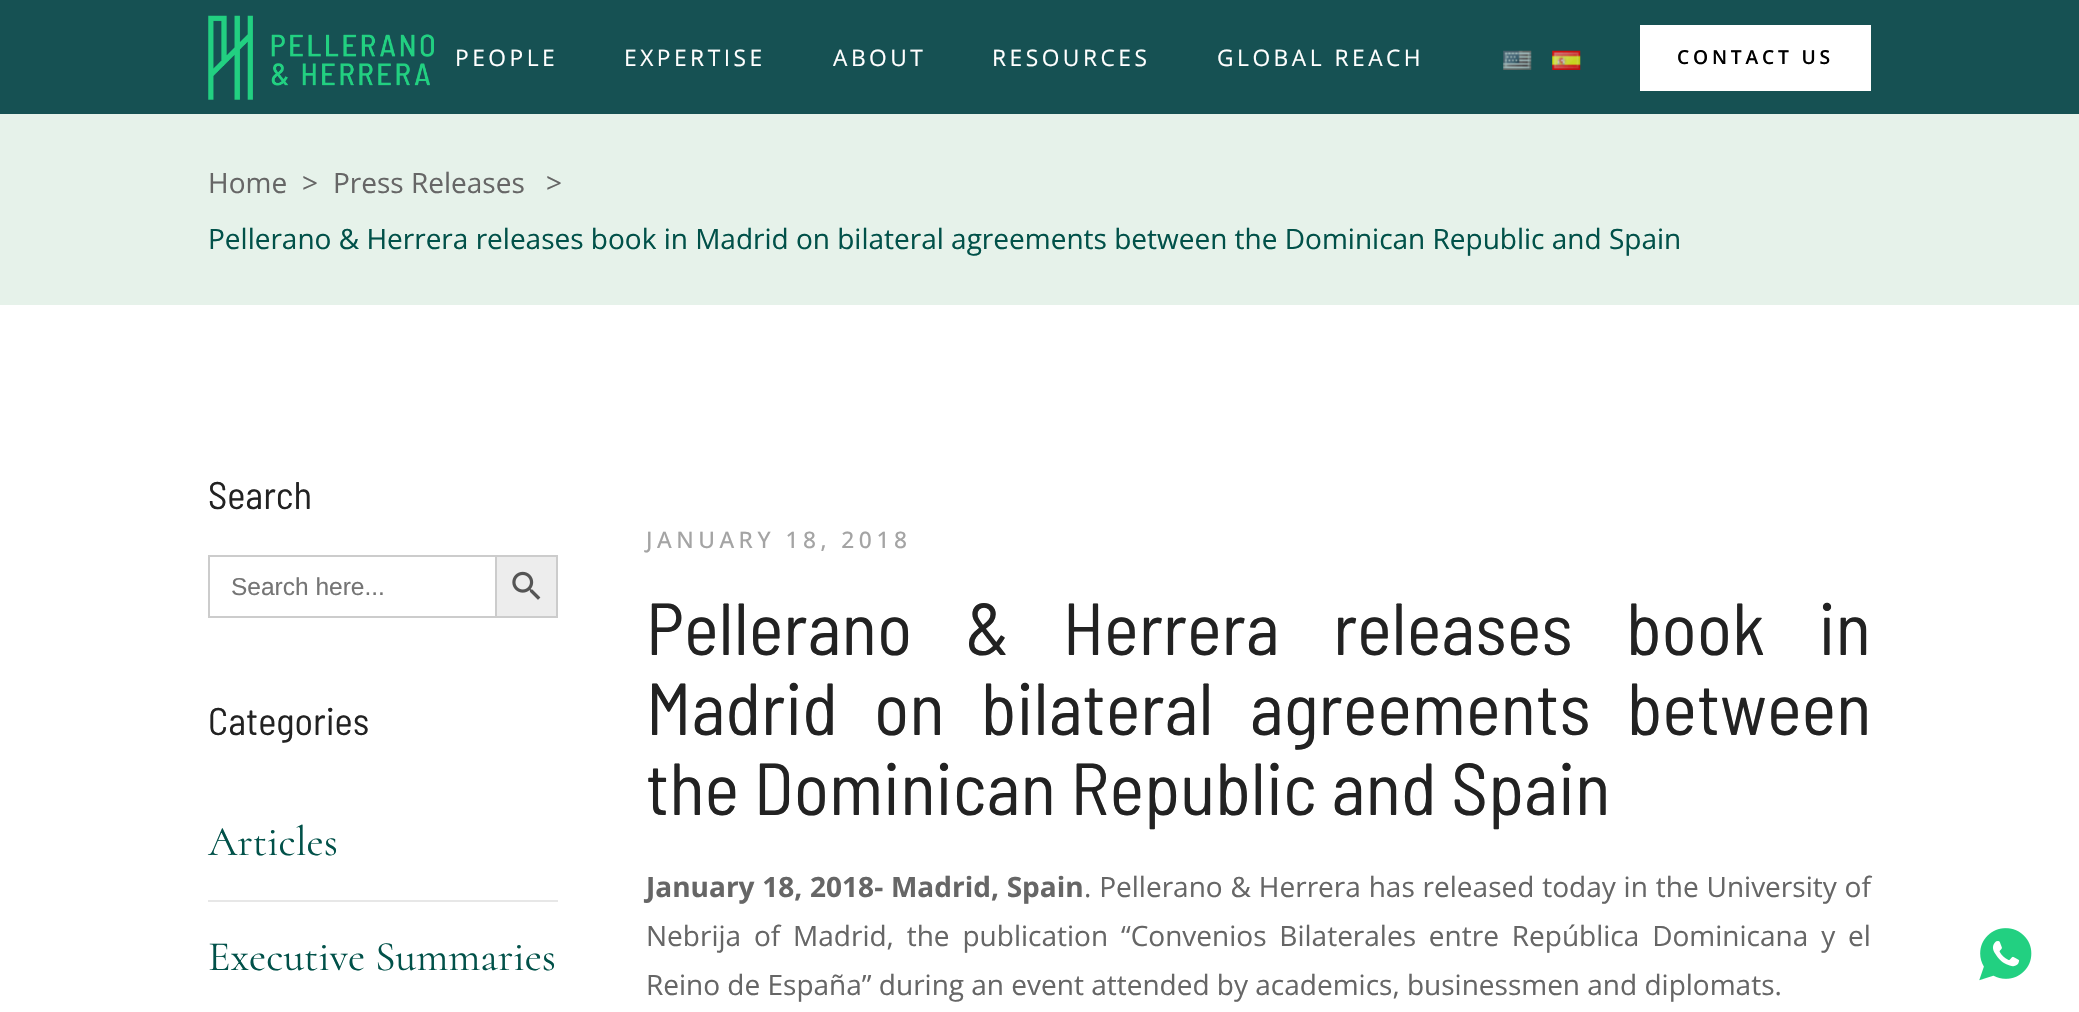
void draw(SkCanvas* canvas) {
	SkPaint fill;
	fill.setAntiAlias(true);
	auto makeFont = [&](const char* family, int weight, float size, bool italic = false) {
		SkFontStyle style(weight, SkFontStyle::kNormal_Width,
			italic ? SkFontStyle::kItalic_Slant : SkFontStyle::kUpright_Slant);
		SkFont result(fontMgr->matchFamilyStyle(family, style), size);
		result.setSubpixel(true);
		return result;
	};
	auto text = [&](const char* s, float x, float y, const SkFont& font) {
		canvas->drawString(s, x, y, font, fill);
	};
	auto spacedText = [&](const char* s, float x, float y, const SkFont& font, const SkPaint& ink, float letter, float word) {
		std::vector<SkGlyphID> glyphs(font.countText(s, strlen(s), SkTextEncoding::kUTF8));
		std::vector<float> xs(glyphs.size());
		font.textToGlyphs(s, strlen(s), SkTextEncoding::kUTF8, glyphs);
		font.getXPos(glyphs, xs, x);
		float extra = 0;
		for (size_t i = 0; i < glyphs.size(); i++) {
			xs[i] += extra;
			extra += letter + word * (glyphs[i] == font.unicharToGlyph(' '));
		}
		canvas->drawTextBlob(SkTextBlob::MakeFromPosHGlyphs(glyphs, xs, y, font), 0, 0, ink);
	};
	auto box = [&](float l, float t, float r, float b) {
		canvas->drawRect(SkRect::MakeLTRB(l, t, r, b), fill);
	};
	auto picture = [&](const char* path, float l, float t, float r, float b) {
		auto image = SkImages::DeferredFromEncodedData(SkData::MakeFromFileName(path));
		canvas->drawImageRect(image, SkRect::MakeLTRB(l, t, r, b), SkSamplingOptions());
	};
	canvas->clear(0xFFFFFFFF);
	fill.setColor(0xFF165153);
	box(0, 0, 2079, 114);
	picture("image0.png", 208, 15, 434, 100);
	picture("image1.png", 1503, 50, 1532, 70);
	picture("image2.png", 1552, 50, 1581, 70);
	fill.setColor(0xFFFFFFFF);
	box(1640, 25, 1871, 91);
	fill.setColor(0xFFE6F2EA);
	box(0, 114, 2079, 305);
	fill.setColor(0xFFCCCCCC);
	box(208, 555, 495, 557);
	box(208, 616, 495, 618);
	box(208, 555, 210, 618);
	fill.setColor(0xFFEDEDED);
	canvas->drawRect(SkRect::MakeLTRB(496, 556, 557, 617), fill);
	fill.setStyle(SkPaint::kStroke_Style);
	fill.setStrokeWidth(2);
	fill.setColor(0xFFCCCCCC);
	canvas->drawRect(SkRect::MakeLTRB(496, 556, 557, 617), fill);
	picture("image3.png", 512, 571, 541, 600);
	fill.setStyle(SkPaint::kFill_Style);
	fill.setColor(0xFFE7E7E7);
	box(208, 900, 558, 902);
	picture("image4.png", 1979, 928, 2032, 981);
	auto font1 = makeFont("Open Sans", 400, 22.75f);
	fill.setColor(0xFFFFFFFF);
	spacedText("PEOPLE", 455, 66, font1, fill, 3.5f, 0);
	spacedText("EXPERTISE", 624, 66, font1, fill, 3.5f, 0);
	spacedText("ABOUT", 833, 66, font1, fill, 3.5f, 0);
	spacedText("RESOURCES", 992, 66, font1, fill, 3.5f, 0);
	spacedText("GLOBAL REACH", 1217, 66, font1, fill, 3.5f, 0);
	auto font2 = makeFont("Open Sans", 600, 19.25f);
	fill.setColor(0xFF000000);
	spacedText("CONTACT US", 1677, 64, font2, fill, 3.8f, 0);
	auto font3 = makeFont("Open Sans", 400, 28);
	fill.setColor(0xFF666666);
	text("Home", 208, 193, font3);
	text(">", 302, 193, font3);
	text("Press Releases", 333, 193, font3);
	text(">", 546, 193, font3);
	fill.setColor(0xFF015149);
	text("Pellerano & Herrera releases book in Madrid on bilateral agreements between the Dominican Republic and Spain", 208, 249, font3);
	auto font4 = makeFont("Barlow Semi Condensed", 400, 38.5f);
	fill.setColor(0xFF222222);
	text("Search", 208, 509, font4);
	auto font5 = makeFont("Liberation Sans", 400, 24.5f);
	fill.setColor(0xFF757575);
	text("Search here...", 231, 595, font5);
	fill.setColor(0xFF222222);
	text("Categories", 208, 735, font4);
	auto font6 = makeFont("Cormorant", 400, 42);
	fill.setColor(0xFF015149);
	text("Articles", 208, 855, font6);
	text("Executive Summaries", 208, 970, font6);
	auto font7 = makeFont("Open Sans", 500, 22.75f);
	fill.setColor(0xFFA4A4A4);
	spacedText("JANUARY 18, 2018", 646, 548, font7, fill, 4.5f, 0);
	auto font8 = makeFont("Barlow Semi Condensed", 400, 73.5f);
	fill.setColor(0xFF222222);
	spacedText("Pellerano & Herrera releases book in", 646, 655, font8, fill, 0, 38.5f);
	spacedText("Madrid on bilateral agreements between", 646, 735, font8, fill, 0, 21.5f);
	text("the Dominican Republic and Spain", 646, 815, font8);
	auto font9 = makeFont("Open Sans", 700, 28);
	fill.setColor(0xFF666666);
	spacedText("January 18, 2018- Madrid, Spain", 646, 897, font9, fill, 0, 0.5f);
	spacedText(". Pellerano & Herrera has released today in the University of", 1084, 897, font3, fill, 0, 0.6f);
	spacedText("Nebrija of Madrid, the publication “Convenios Bilaterales entre República Dominicana y el", 646, 946, font3, fill, 0, 5.6f);
	text("Reino de España” during an event attended by academics, businessmen and diplomats.", 646, 995, font3);
}
